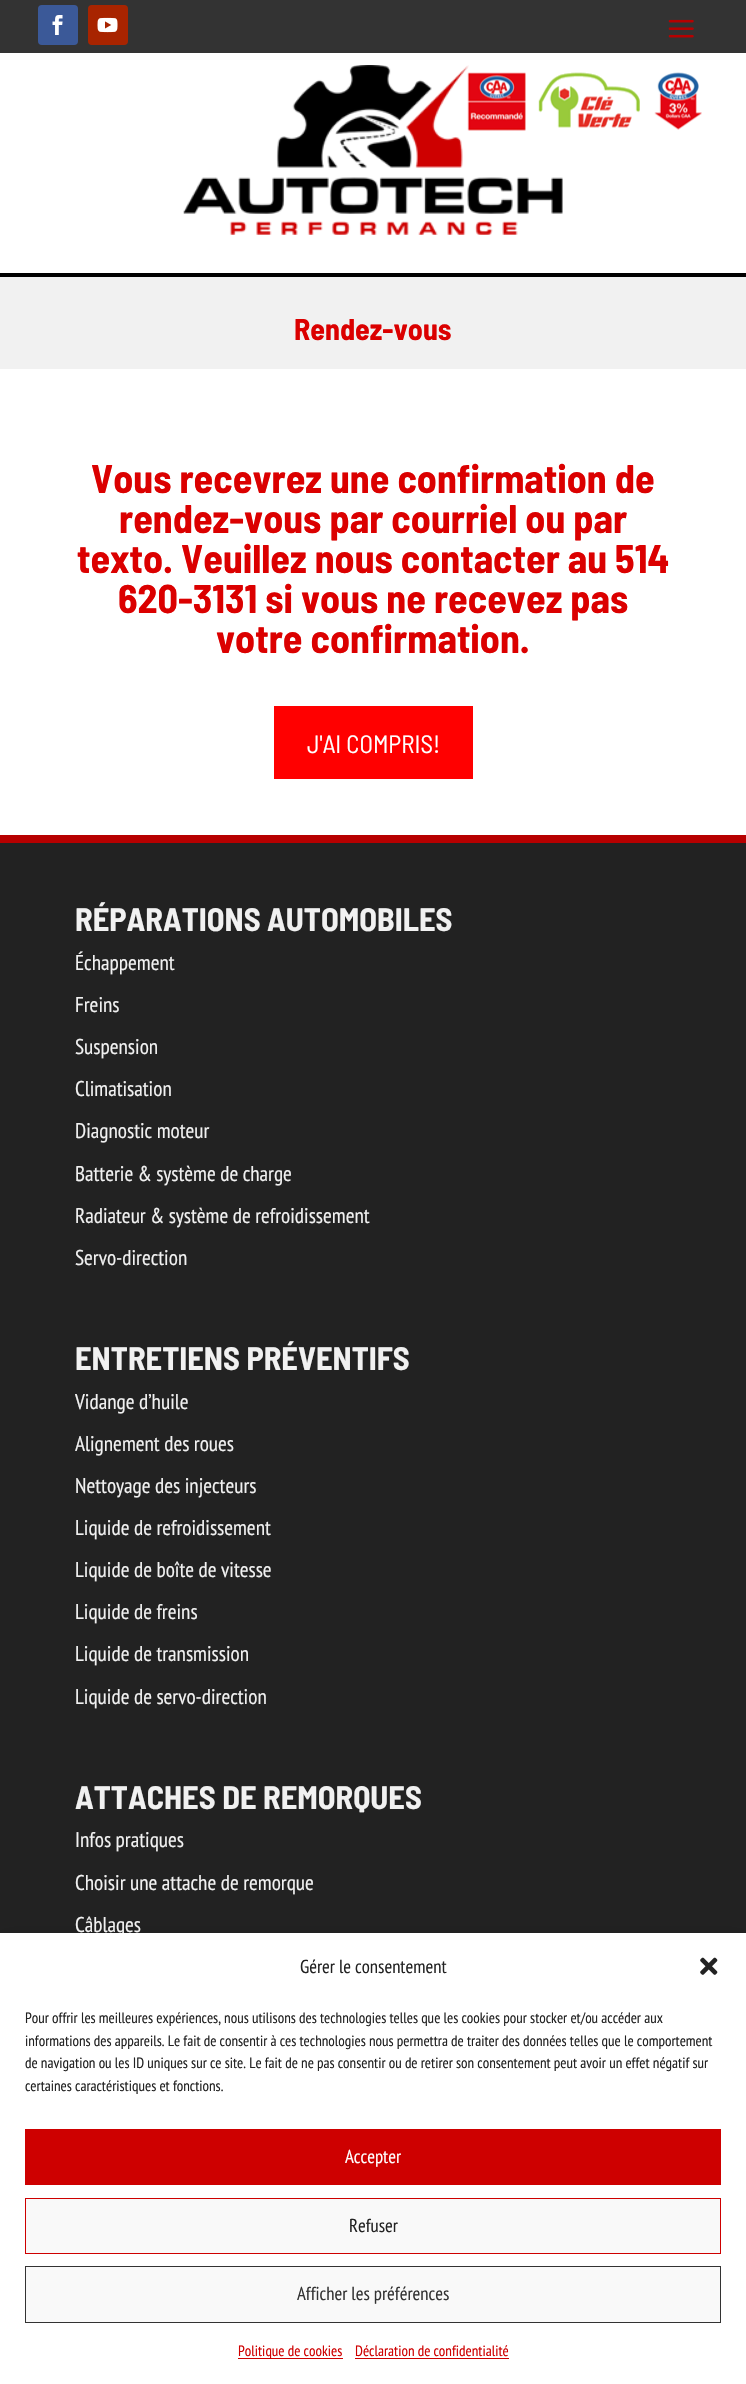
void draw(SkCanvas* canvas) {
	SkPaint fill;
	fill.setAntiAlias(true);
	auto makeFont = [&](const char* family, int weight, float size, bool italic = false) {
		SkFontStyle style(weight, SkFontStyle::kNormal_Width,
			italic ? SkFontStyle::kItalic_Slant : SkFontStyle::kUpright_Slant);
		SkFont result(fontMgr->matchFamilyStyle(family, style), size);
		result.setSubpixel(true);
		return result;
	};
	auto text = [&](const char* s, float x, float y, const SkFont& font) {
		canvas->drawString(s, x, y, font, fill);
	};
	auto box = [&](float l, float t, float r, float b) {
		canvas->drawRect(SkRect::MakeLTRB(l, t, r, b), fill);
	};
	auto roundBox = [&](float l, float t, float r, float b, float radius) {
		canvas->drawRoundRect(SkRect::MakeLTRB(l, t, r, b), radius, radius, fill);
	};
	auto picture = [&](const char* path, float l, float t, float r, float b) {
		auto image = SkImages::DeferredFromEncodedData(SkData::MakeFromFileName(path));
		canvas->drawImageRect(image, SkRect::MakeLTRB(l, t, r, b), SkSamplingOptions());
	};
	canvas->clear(0xFFF1F1F1);
	fill.setColor(0xFF333333);
	box(0, 0, 746, 53);
	fill.setColor(0xFF3B5998);
	roundBox(38, 5, 78, 45, 4);
	picture("image0.png", 52, 15, 63, 35);
	fill.setColor(0xFFA82400);
	roundBox(88, 5, 128, 45, 4);
	picture("image1.png", 97, 17, 118, 33);
	picture("image2.png", 668, 19, 694, 38);
	fill.setColor(0xFFFFFFFF);
	box(0, 53, 746, 273);
	fill.setColor(0xFF000000);
	box(0, 273, 746, 277);
	picture("image3.png", 183, 65, 563, 235);
	picture("image4.png", 467, 72, 526, 131);
	picture("image5.png", 538, 72, 640, 128);
	picture("image6.png", 654, 72, 702, 130);
	fill.setColor(0xFFFFFFFF);
	box(0, 369, 746, 835);
	fill.setColor(0xFFFF0000);
	box(274, 706, 473, 779);
	fill.setColor(0xFF222222);
	box(0, 843, 746, 1933);
	fill.setColor(0xFFB70000);
	box(0, 835, 746, 843);
	fill.setColor(0x30000000);
	fill.setMaskFilter(SkMaskFilter::MakeBlur(kNormal_SkBlurStyle, 12.5f));
	canvas->drawRect(SkRect::MakeLTRB(0, 1945, 746, 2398), fill);
	fill.setMaskFilter(nullptr);
	auto font1 = makeFont("Barlow Semi Condensed", 700, 30);
	fill.setColor(0xFFDB0000);
	text("Rendez-vous", 294, 340, font1);
	auto font2 = makeFont("Barlow Semi Condensed", 700, 40);
	text("Vous recevrez une confirmation de", 91, 493, font2);
	text("rendez-vous par courriel ou par", 119, 533, font2);
	text("texto. Veuillez nous contacter au 514", 77, 573, font2);
	text("620-3131 si vous ne recevez pas", 118, 613, font2);
	text("votre confirmation.", 216, 653, font2);
	auto font3 = makeFont("Barlow Semi Condensed", 400, 25);
	fill.setColor(0xFFFFFFFF);
	text("J'AI COMPRIS!", 307, 753, font3);
	auto font4 = makeFont("Barlow Semi Condensed", 700, 32.5f);
	fill.setColor(0xFFF1F1F1);
	text("RÉPARATIONS AUTOMOBILES", 75, 931, font4);
	auto font5 = makeFont("PT Sans Narrow", 400, 21.25f);
	text("Échappement", 75, 970, font5);
	text("Freins", 75, 1012, font5);
	text("Suspension", 75, 1054, font5);
	text("Climatisation", 75, 1096, font5);
	text("Diagnostic moteur", 75, 1138, font5);
	text("Batterie & système de charge", 75, 1181, font5);
	text("Radiateur & système de refroidissement", 75, 1223, font5);
	text("Servo-direction", 75, 1265, font5);
	text("ENTRETIENS PRÉVENTIFS", 75, 1370, font4);
	text("Vidange d’huile", 75, 1409, font5);
	text("Alignement des roues", 75, 1451, font5);
	text("Nettoyage des injecteurs", 75, 1493, font5);
	text("Liquide de refroidissement", 75, 1535, font5);
	text("Liquide de boîte de vitesse", 75, 1577, font5);
	text("Liquide de freins", 75, 1619, font5);
	text("Liquide de transmission", 75, 1661, font5);
	text("Liquide de servo-direction", 75, 1704, font5);
	text("ATTACHES DE REMORQUES", 75, 1809, font4);
	text("Infos pratiques", 75, 1847, font5);
	text("Choisir une attache de remorque", 75, 1890, font5);
	text("Câblages", 75, 1932, font5);
	fill.setColor(0xFFFFFFFF);
	box(0, 1933, 746, 2384);
	auto font6 = makeFont("PT Sans Narrow", 400, 18.75f);
	fill.setColor(0xFF222222);
	text("Gérer le consentement", 300, 1973, font6);
	picture("image7.png", 700, 1957, 718, 1975);
	auto font7 = makeFont("PT Sans Narrow", 400, 15);
	text("Pour offrir les meilleures expériences, nous utilisons des technologies telles que les cookies pour stocker et/ou accéder aux", 25, 2023, font7);
	text("informations des appareils. Le fait de consentir à ces technologies nous permettra de traiter des données telles que le comportement", 25, 2046, font7);
	text("de navigation ou les ID uniques sur ce site. Le fait de ne pas consentir ou de retirer son consentement peut avoir un effet négatif sur", 25, 2068, font7);
	text("certaines caractéristiques et fonctions.", 25, 2091, font7);
	fill.setColor(0xFFCE0000);
	box(25, 2129, 721, 2185);
	fill.setColor(0xFFFFFFFF);
	text("Accepter", 345, 2163, font6);
	fill.setColor(0xFFF9F9F9);
	canvas->drawRect(SkRect::MakeLTRB(25.5f, 2198.5f, 720.5f, 2253.5f), fill);
	fill.setStyle(SkPaint::kStroke_Style);
	fill.setStrokeWidth(1);
	fill.setColor(0xFFCE0000);
	canvas->drawRect(SkRect::MakeLTRB(25.5f, 2198.5f, 720.5f, 2253.5f), fill);
	fill.setStyle(SkPaint::kFill_Style);
	fill.setColor(0xFF222222);
	text("Refuser", 349, 2232, font6);
	fill.setColor(0xFFF9F9F9);
	canvas->drawRect(SkRect::MakeLTRB(25.5f, 2266.5f, 720.5f, 2322.5f), fill);
	fill.setStyle(SkPaint::kStroke_Style);
	fill.setColor(0xFF333333);
	canvas->drawRect(SkRect::MakeLTRB(25.5f, 2266.5f, 720.5f, 2322.5f), fill);
	fill.setStyle(SkPaint::kFill_Style);
	text("Afficher les préférences", 297, 2300, font6);
	fill.setColor(0xFFCE0000);
	box(238, 2358, 343, 2359);
	text("Politique de cookies", 238, 2356, font7);
	text("Déclaration de confidentialité", 355, 2356, font7);
	box(355, 2358, 509, 2359);
}
